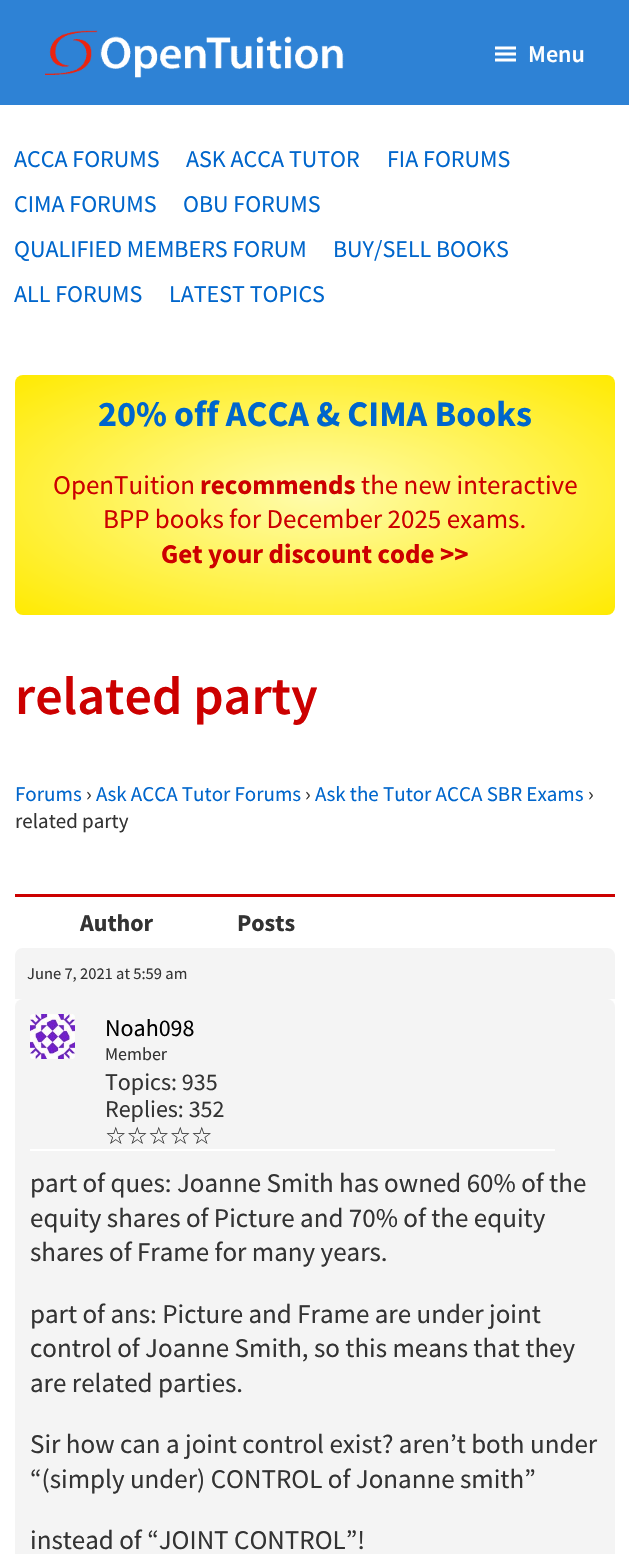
void draw(SkCanvas* canvas) {
	SkPaint fill;
	fill.setAntiAlias(true);
	auto makeFont = [&](const char* family, int weight, float size, bool italic = false) {
		SkFontStyle style(weight, SkFontStyle::kNormal_Width,
			italic ? SkFontStyle::kItalic_Slant : SkFontStyle::kUpright_Slant);
		SkFont result(fontMgr->matchFamilyStyle(family, style), size);
		result.setSubpixel(true);
		return result;
	};
	auto text = [&](const char* s, float x, float y, const SkFont& font) {
		canvas->drawString(s, x, y, font, fill);
	};
	auto box = [&](float l, float t, float r, float b) {
		canvas->drawRect(SkRect::MakeLTRB(l, t, r, b), fill);
	};
	auto roundBox = [&](float l, float t, float r, float b, float radius) {
		canvas->drawRoundRect(SkRect::MakeLTRB(l, t, r, b), radius, radius, fill);
	};
	auto picture = [&](const char* path, float l, float t, float r, float b) {
		auto image = SkImages::DeferredFromEncodedData(SkData::MakeFromFileName(path));
		canvas->drawImageRect(image, SkRect::MakeLTRB(l, t, r, b), SkSamplingOptions());
	};
	canvas->clear(0xFFFFFFFF);
	fill.setColor(0xFF2E82D5);
	box(0, 0, 629, 105);
	picture("image0.png", 45, 30, 344, 78);
	picture("image1.png", 495, 46, 516, 62);
	{
		const SkColor colors[] = {0xFFFFFCAA, 0xFFFFEA01};
		const float stops[] = {0.01f, 1};
		SkMatrix m = SkMatrix::Translate(315, 495).preScale(424, 170);
		fill.setShader(SkGradientShader::MakeRadial({0, 0}, 1, colors, stops, 2, SkTileMode::kClamp, 0, &m));
		fill.setAlpha(255);
	}
	roundBox(15, 375, 615, 615, 8);
	fill.setShader(nullptr);
	fill.setColor(0xFFCC0000);
	box(15, 894, 615, 897);
	fill.setColor(0xFFF4F4F4);
	canvas->drawPath(SkPathBuilder().moveTo(23, 948).lineTo(607, 948).cubicTo(611.5f, 948, 615, 951.5f, 615, 956).lineTo(615, 999).lineTo(15, 999).lineTo(15, 956).cubicTo(15, 951.5f, 18.5f, 948, 23, 948).close().detach(), fill);
	roundBox(15, 999, 615, 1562, 8);
	fill.setColor(0xFFFFFFFF);
	box(30, 1149, 555, 1151);
	picture("image2.png", 30, 1014, 75, 1059);
	auto font1 = makeFont("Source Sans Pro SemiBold", 600, 24);
	text("Menu", 528, 62, font1);
	auto font2 = makeFont("Source Sans Pro", 400, 24);
	fill.setColor(0xFF0066CC);
	text("ACCA FORUMS", 14, 167, font2);
	text("ASK ACCA TUTOR", 186, 167, font2);
	text("FIA FORUMS", 387, 167, font2);
	text("CIMA FORUMS", 14, 212, font2);
	text("OBU FORUMS", 183, 212, font2);
	text("QUALIFIED MEMBERS FORUM", 14, 257, font2);
	text("BUY/SELL BOOKS", 333, 257, font2);
	text("ALL FORUMS", 14, 302, font2);
	text("LATEST TOPICS", 169, 302, font2);
	auto font3 = makeFont("Source Sans Pro", 700, 36);
	text("20% off ACCA & CIMA Books", 98, 426, font3);
	auto font4 = makeFont("Source Sans Pro", 400, 27);
	fill.setColor(0xFFCC0000);
	text("OpenTuition", 53, 494, font4);
	auto font5 = makeFont("Source Sans Pro", 700, 27);
	text("recommends", 200, 494, font5);
	text("the new interactive", 361, 494, font4);
	text("BPP books for December 2025 exams.", 103, 528, font4);
	text("Get your discount code >>", 161, 563, font5);
	auto font6 = makeFont("Source Sans Pro SemiBold", 600, 54);
	text("related party", 15, 714, font6);
	auto font7 = makeFont("Source Sans Pro", 400, 21);
	fill.setColor(0xFF0066CC);
	text("Forums", 15, 801, font7);
	fill.setColor(0xFF333333);
	text("›", 86, 801, font7);
	fill.setColor(0xFF0066CC);
	text("Ask ACCA Tutor Forums", 96, 801, font7);
	fill.setColor(0xFF333333);
	text("›", 305, 801, font7);
	fill.setColor(0xFF0066CC);
	text("Ask the Tutor ACCA SBR Exams", 315, 801, font7);
	fill.setColor(0xFF333333);
	text("›", 588, 801, font7);
	text("related party", 15, 828, font7);
	auto font8 = makeFont("Source Sans Pro", 700, 24);
	text("Author", 80, 931, font8);
	text("Posts", 237, 931, font8);
	auto font9 = makeFont("Source Sans Pro", 400, 16.5f);
	text("June 7, 2021 at 5:59 am", 27, 979, font9);
	fill.setColor(0xFF000000);
	text("Noah098", 105, 1036, font2);
	auto font10 = makeFont("Source Sans Pro", 400, 18);
	fill.setColor(0xFF333333);
	text("Member", 105, 1060, font10);
	text("Topics: 935", 105, 1090, font2);
	text("Replies: 352", 105, 1117, font2);
	auto font11 = makeFont("DejaVu Sans", 400, 24);
	text("☆☆☆☆☆", 105, 1144, font11);
	text("part of ques: Joanne Smith has owned 60% of the", 30, 1192, font4);
	text("equity shares of Picture and 70% of the equity", 30, 1227, font4);
	text("shares of Frame for many years.", 30, 1261, font4);
	text("part of ans: Picture and Frame are under joint", 30, 1323, font4);
	text("control of Joanne Smith, so this means that they", 30, 1357, font4);
	text("are related parties.", 30, 1392, font4);
	text("Sir how can a joint control exist? aren’t both under", 30, 1453, font4);
	text("“(simply under) CONTROL of Jonanne smith”", 30, 1488, font4);
	text("instead of “JOINT CONTROL”!", 30, 1549, font4);
}
